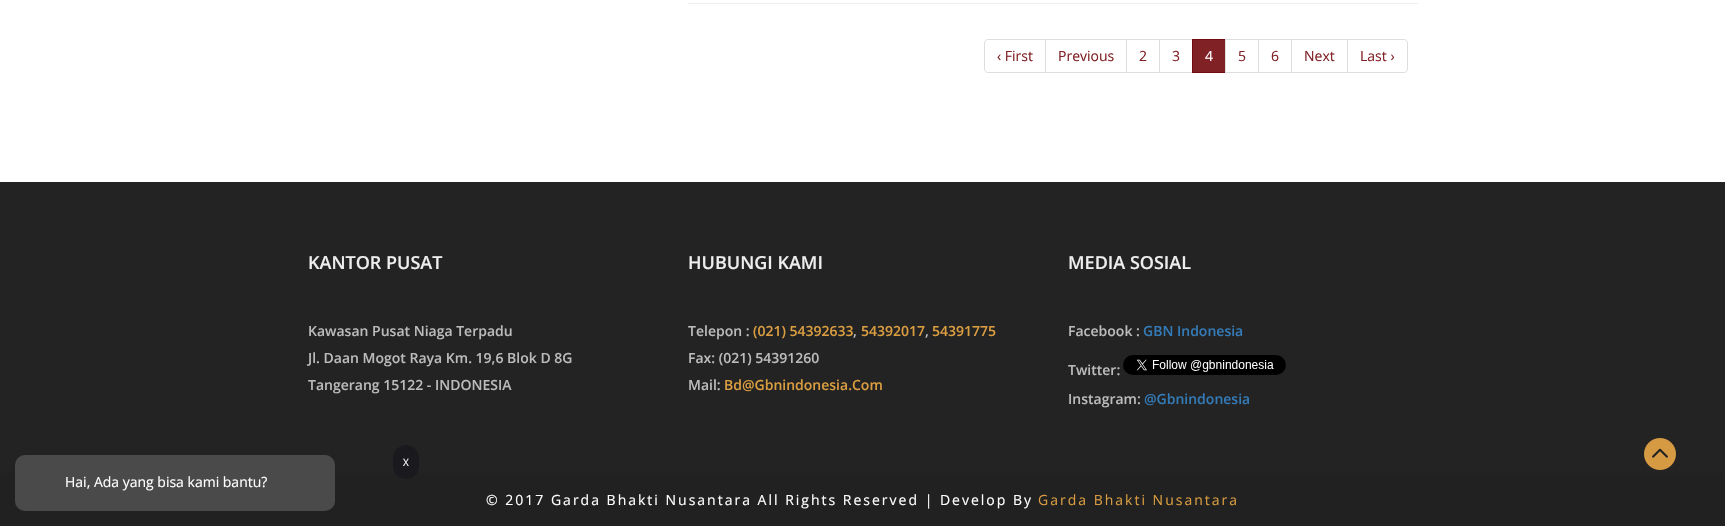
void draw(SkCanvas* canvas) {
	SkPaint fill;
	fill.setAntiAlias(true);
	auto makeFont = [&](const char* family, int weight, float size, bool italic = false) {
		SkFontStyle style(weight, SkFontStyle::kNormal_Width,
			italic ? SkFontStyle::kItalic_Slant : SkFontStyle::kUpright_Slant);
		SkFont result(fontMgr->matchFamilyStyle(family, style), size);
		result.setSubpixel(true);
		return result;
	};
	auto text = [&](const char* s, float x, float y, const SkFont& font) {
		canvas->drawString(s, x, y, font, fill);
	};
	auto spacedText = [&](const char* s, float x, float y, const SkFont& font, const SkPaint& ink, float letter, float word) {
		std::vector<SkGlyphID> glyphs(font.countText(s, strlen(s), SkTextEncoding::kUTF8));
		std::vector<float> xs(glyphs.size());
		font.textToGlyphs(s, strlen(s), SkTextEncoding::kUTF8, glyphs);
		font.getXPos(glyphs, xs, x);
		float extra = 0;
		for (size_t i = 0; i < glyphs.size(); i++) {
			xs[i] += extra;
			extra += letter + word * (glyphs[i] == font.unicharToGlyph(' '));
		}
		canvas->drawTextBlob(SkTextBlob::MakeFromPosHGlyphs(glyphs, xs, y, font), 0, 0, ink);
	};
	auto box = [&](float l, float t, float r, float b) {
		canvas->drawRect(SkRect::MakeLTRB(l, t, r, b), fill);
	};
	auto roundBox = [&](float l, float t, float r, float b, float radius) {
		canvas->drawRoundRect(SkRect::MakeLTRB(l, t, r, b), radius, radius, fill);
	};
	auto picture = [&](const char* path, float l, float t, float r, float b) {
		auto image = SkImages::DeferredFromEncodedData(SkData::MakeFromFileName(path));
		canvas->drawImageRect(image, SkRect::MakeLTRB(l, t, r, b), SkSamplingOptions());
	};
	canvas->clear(0xFFFFFFFF);
	fill.setColor(0xFFEEEEEE);
	box(688, 3, 1418, 4);
	fill.setStyle(SkPaint::kStroke_Style);
	fill.setStrokeWidth(1);
	fill.setColor(0xFFDDDDDD);
	canvas->drawPath(SkPathBuilder().moveTo(988, 39.5f).lineTo(1045.5f, 39.5f).lineTo(1045.5f, 72.5f).lineTo(988, 72.5f).cubicTo(986, 72.5f, 984.5f, 71, 984.5f, 69).lineTo(984.5f, 43).cubicTo(984.5f, 41, 986, 39.5f, 988, 39.5f).close().detach(), fill);
	canvas->drawRect(SkRect::MakeLTRB(1045.5f, 39.5f, 1126.5f, 72.5f), fill);
	canvas->drawRect(SkRect::MakeLTRB(1126.5f, 39.5f, 1159.5f, 72.5f), fill);
	canvas->drawRect(SkRect::MakeLTRB(1159.5f, 39.5f, 1192.5f, 72.5f), fill);
	fill.setStyle(SkPaint::kFill_Style);
	fill.setColor(0xE672090D);
	box(1192, 39, 1225, 73);
	fill.setStyle(SkPaint::kStroke_Style);
	canvas->drawRect(SkRect::MakeLTRB(1192.5f, 39.5f, 1225.5f, 72.5f), fill);
	fill.setColor(0xFFDDDDDD);
	canvas->drawRect(SkRect::MakeLTRB(1225.5f, 39.5f, 1258.5f, 72.5f), fill);
	canvas->drawRect(SkRect::MakeLTRB(1258.5f, 39.5f, 1291.5f, 72.5f), fill);
	canvas->drawRect(SkRect::MakeLTRB(1291.5f, 39.5f, 1347.5f, 72.5f), fill);
	fill.setStyle(SkPaint::kFill_Style);
	fill.setColor(0xFFFFFFFF);
	canvas->drawPath(SkPathBuilder().moveTo(1347.5f, 39.5f).lineTo(1404, 39.5f).cubicTo(1406, 39.5f, 1407.5f, 41, 1407.5f, 43).lineTo(1407.5f, 69).cubicTo(1407.5f, 71, 1406, 72.5f, 1404, 72.5f).lineTo(1347.5f, 72.5f).close().detach(), fill);
	fill.setStyle(SkPaint::kStroke_Style);
	fill.setColor(0xFFDDDDDD);
	canvas->drawPath(SkPathBuilder().moveTo(1347.5f, 39.5f).lineTo(1404, 39.5f).cubicTo(1406, 39.5f, 1407.5f, 41, 1407.5f, 43).lineTo(1407.5f, 69).cubicTo(1407.5f, 71, 1406, 72.5f, 1404, 72.5f).lineTo(1347.5f, 72.5f).close().detach(), fill);
	fill.setStyle(SkPaint::kFill_Style);
	fill.setColor(0xFF232323);
	box(0, 182, 1725, 473);
	picture("image0.png", 1123, 355, 1286, 375);
	picture("image1.png", 1644, 438, 1676, 470);
	fill.setColor(0xFF212121);
	box(0, 473, 1725, 526);
	fill.setColor(0xFF1A1A1E);
	roundBox(393, 445, 419, 479, 13);
	fill.setColor(0xFF4A4A4A);
	roundBox(15, 455, 335, 511, 10);
	auto font1 = makeFont("Open Sans", 400, 14);
	fill.setColor(0xFF802225);
	text("‹ First", 997, 61, font1);
	text("Previous", 1058, 61, font1);
	text("2", 1139, 61, font1);
	text("3", 1172, 61, font1);
	fill.setColor(0xFFFFFFFF);
	text("4", 1205, 61, font1);
	fill.setColor(0xFF802225);
	text("5", 1238, 61, font1);
	text("6", 1271, 61, font1);
	text("Next", 1304, 61, font1);
	text("Last ›", 1360, 61, font1);
	auto font2 = makeFont("Open Sans", 600, 18);
	fill.setColor(0xFFEEEEEE);
	text("KANTOR PUSAT", 308, 269, font2);
	auto font3 = makeFont("Open Sans", 600, 14);
	fill.setColor(0xFFBBBBBB);
	text("Kawasan Pusat Niaga Terpadu", 308, 336, font3);
	text("Jl. Daan Mogot Raya Km. 19,6 Blok D 8G", 308, 363, font3);
	text("Tangerang 15122 - INDONESIA", 308, 390, font3);
	fill.setColor(0xFFEEEEEE);
	text("HUBUNGI KAMI", 688, 269, font2);
	fill.setColor(0xFFBBBBBB);
	text("Telepon :", 688, 336, font3);
	fill.setColor(0xFFDA9D40);
	text("(021) 54392633", 753, 336, font3);
	fill.setColor(0xFFBBBBBB);
	text(",", 853, 336, font3);
	fill.setColor(0xFFDA9D40);
	text("54392017", 861, 336, font3);
	fill.setColor(0xFFBBBBBB);
	text(",", 925, 336, font3);
	fill.setColor(0xFFDA9D40);
	text("54391775", 932, 336, font3);
	fill.setColor(0xFFBBBBBB);
	text("Fax: (021) 54391260", 688, 363, font3);
	text("Mail:", 688, 390, font3);
	fill.setColor(0xFFDA9D40);
	text("Bd@Gbnindonesia.Com", 724, 390, font3);
	fill.setColor(0xFFEEEEEE);
	text("MEDIA SOSIAL", 1068, 269, font2);
	fill.setColor(0xFFBBBBBB);
	text("Facebook :", 1068, 336, font3);
	fill.setColor(0xFF337AB7);
	text("GBN Indonesia", 1143, 336, font3);
	fill.setColor(0xFFBBBBBB);
	text("Twitter:", 1068, 375, font3);
	text("Instagram:", 1068, 404, font3);
	fill.setColor(0xFF337AB7);
	text("@Gbnindonesia", 1144, 404, font3);
	auto font4 = makeFont("Open Sans", 400, 10);
	fill.setColor(0xFFFFFFFF);
	text("X", 403, 466, font4);
	text("Hai, Ada yang bisa kami bantu?", 65, 487, font1);
	spacedText("© 2017 Garda Bhakti Nusantara All Rights Reserved | Develop By", 486, 505, font1, fill, 2, 0);
	fill.setColor(0xFFDA9D40);
	spacedText("Garda Bhakti Nusantara", 1038, 505, font1, fill, 2, 0);
}
